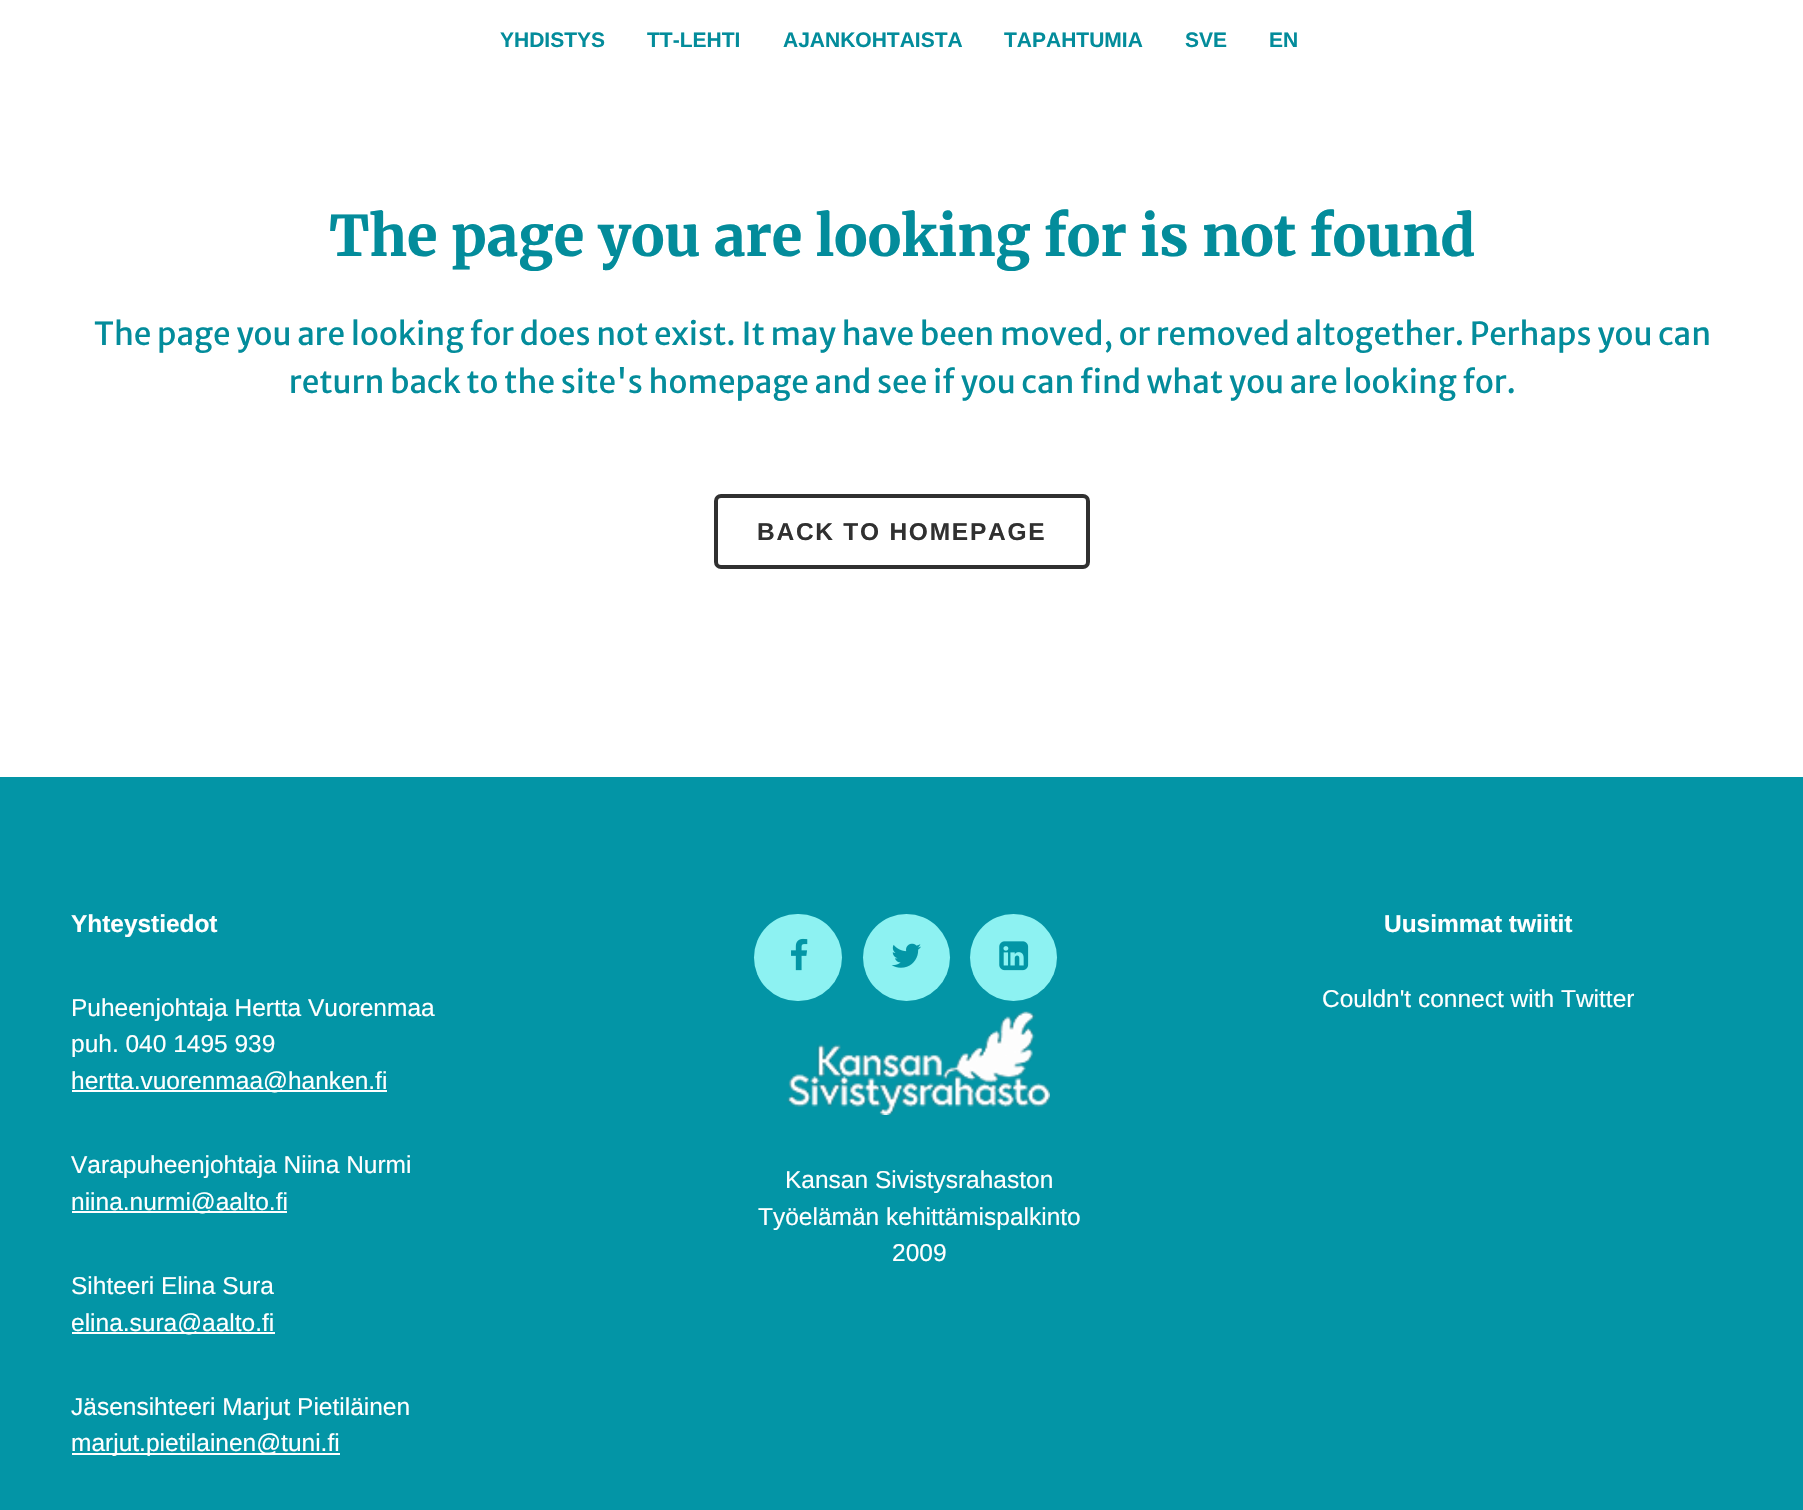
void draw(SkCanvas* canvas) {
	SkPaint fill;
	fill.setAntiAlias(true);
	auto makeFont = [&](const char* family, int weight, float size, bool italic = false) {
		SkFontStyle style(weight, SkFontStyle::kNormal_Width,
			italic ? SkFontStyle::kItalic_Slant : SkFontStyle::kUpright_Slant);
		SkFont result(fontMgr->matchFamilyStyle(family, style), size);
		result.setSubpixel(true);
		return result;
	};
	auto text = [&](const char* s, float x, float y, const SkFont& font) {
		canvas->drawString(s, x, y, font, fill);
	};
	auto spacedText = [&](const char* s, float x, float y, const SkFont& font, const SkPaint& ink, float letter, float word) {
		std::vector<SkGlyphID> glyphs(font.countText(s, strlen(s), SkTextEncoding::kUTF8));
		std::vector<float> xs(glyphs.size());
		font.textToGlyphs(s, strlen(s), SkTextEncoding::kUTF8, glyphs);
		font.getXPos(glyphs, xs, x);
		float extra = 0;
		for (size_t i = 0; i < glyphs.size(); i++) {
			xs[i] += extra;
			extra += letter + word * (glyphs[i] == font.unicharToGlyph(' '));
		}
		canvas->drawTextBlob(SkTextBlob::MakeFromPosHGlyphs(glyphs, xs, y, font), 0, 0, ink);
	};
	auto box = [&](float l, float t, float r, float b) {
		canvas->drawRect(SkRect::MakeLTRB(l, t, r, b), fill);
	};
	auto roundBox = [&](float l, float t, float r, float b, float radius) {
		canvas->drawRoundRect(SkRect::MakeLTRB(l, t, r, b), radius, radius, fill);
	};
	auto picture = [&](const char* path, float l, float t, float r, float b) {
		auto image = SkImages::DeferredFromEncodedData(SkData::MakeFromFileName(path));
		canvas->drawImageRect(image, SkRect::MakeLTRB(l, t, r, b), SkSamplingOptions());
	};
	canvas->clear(0xFFFFFFFF);
	fill.setStyle(SkPaint::kStroke_Style);
	fill.setStrokeWidth(4);
	fill.setColor(0xFF303030);
	canvas->drawRoundRect(SkRect::MakeLTRB(716, 496, 1088, 567), 5, 5, fill);
	fill.setStyle(SkPaint::kFill_Style);
	fill.setColor(0xFF0395A6);
	box(0, 777, 1803, 1510);
	fill.setColor(0xFFFFFFFF);
	box(72, 1090, 387, 1092);
	box(72, 1211, 287, 1213);
	box(72, 1332, 275, 1334);
	box(72, 1453, 340, 1455);
	fill.setColor(0xFF8DF2F2);
	roundBox(754, 914, 842, 1001, 43.5f);
	picture("image0.png", 791, 938, 808, 971);
	canvas->drawCircle(906.5f, 957.5f, 43.5f, fill);
	picture("image1.png", 891, 943, 921, 968);
	canvas->drawCircle(1013.5f, 957.5f, 43.5f, fill);
	picture("image2.png", 999, 941, 1029, 971);
	picture("image3.png", 787, 1011, 1050, 1115);
	auto font1 = makeFont("Liberation Sans", 700, 21);
	fill.setColor(0xFF038C9B);
	text("YHDISTYS", 500, 47, font1);
	text("TT-LEHTI", 647, 47, font1);
	text("AJANKOHTAISTA", 783, 47, font1);
	text("TAPAHTUMIA", 1004, 47, font1);
	text("SVE", 1185, 47, font1);
	text("EN", 1269, 47, font1);
	auto font2 = makeFont("Merriweather", 800, 56);
	spacedText("The page you are looking for is not found", 329, 256, font2, fill, -0.05f, 0);
	auto font3 = makeFont("Merriweather Sans", 400, 31.5f);
	text("The page you are looking for does not exist. It may have been moved, or removed altogether. Perhaps you can", 94, 345, font3);
	text("return back to the site's homepage and see if you can find what you are looking for.", 289, 393, font3);
	auto font4 = makeFont("Liberation Sans", 700, 24.5f);
	fill.setColor(0xFF303030);
	spacedText("BACK TO HOMEPAGE", 757, 540, font4, fill, 1.75f, 0);
	fill.setColor(0xFFFFFFFF);
	spacedText("Yhteystiedot", 71, 932, font4, fill, -0.05f, 0);
	auto font5 = makeFont("Liberation Sans", 400, 24.5f);
	text("Puheenjohtaja Hertta Vuorenmaa", 71, 1016, font5);
	text("puh. 040 1495 939", 71, 1052, font5);
	text("hertta.vuorenmaa@hanken.fi", 71, 1089, font5);
	text("Varapuheenjohtaja Niina Nurmi", 71, 1173, font5);
	text("niina.nurmi@aalto.fi", 71, 1210, font5);
	text("Sihteeri Elina Sura", 71, 1294, font5);
	text("elina.sura@aalto.fi", 71, 1331, font5);
	text("Jäsensihteeri Marjut Pietiläinen", 71, 1415, font5);
	text("marjut.pietilainen@tuni.fi", 71, 1451, font5);
	spacedText("Uusimmat twiitit", 1384, 932, font4, fill, -0.05f, 0);
	text("Couldn't connect with Twitter", 1322, 1007, font5);
	text("Kansan Sivistysrahaston", 785, 1188, font5);
	text("Työelämän kehittämispalkinto", 758, 1225, font5);
	text("2009", 892, 1261, font5);
}
